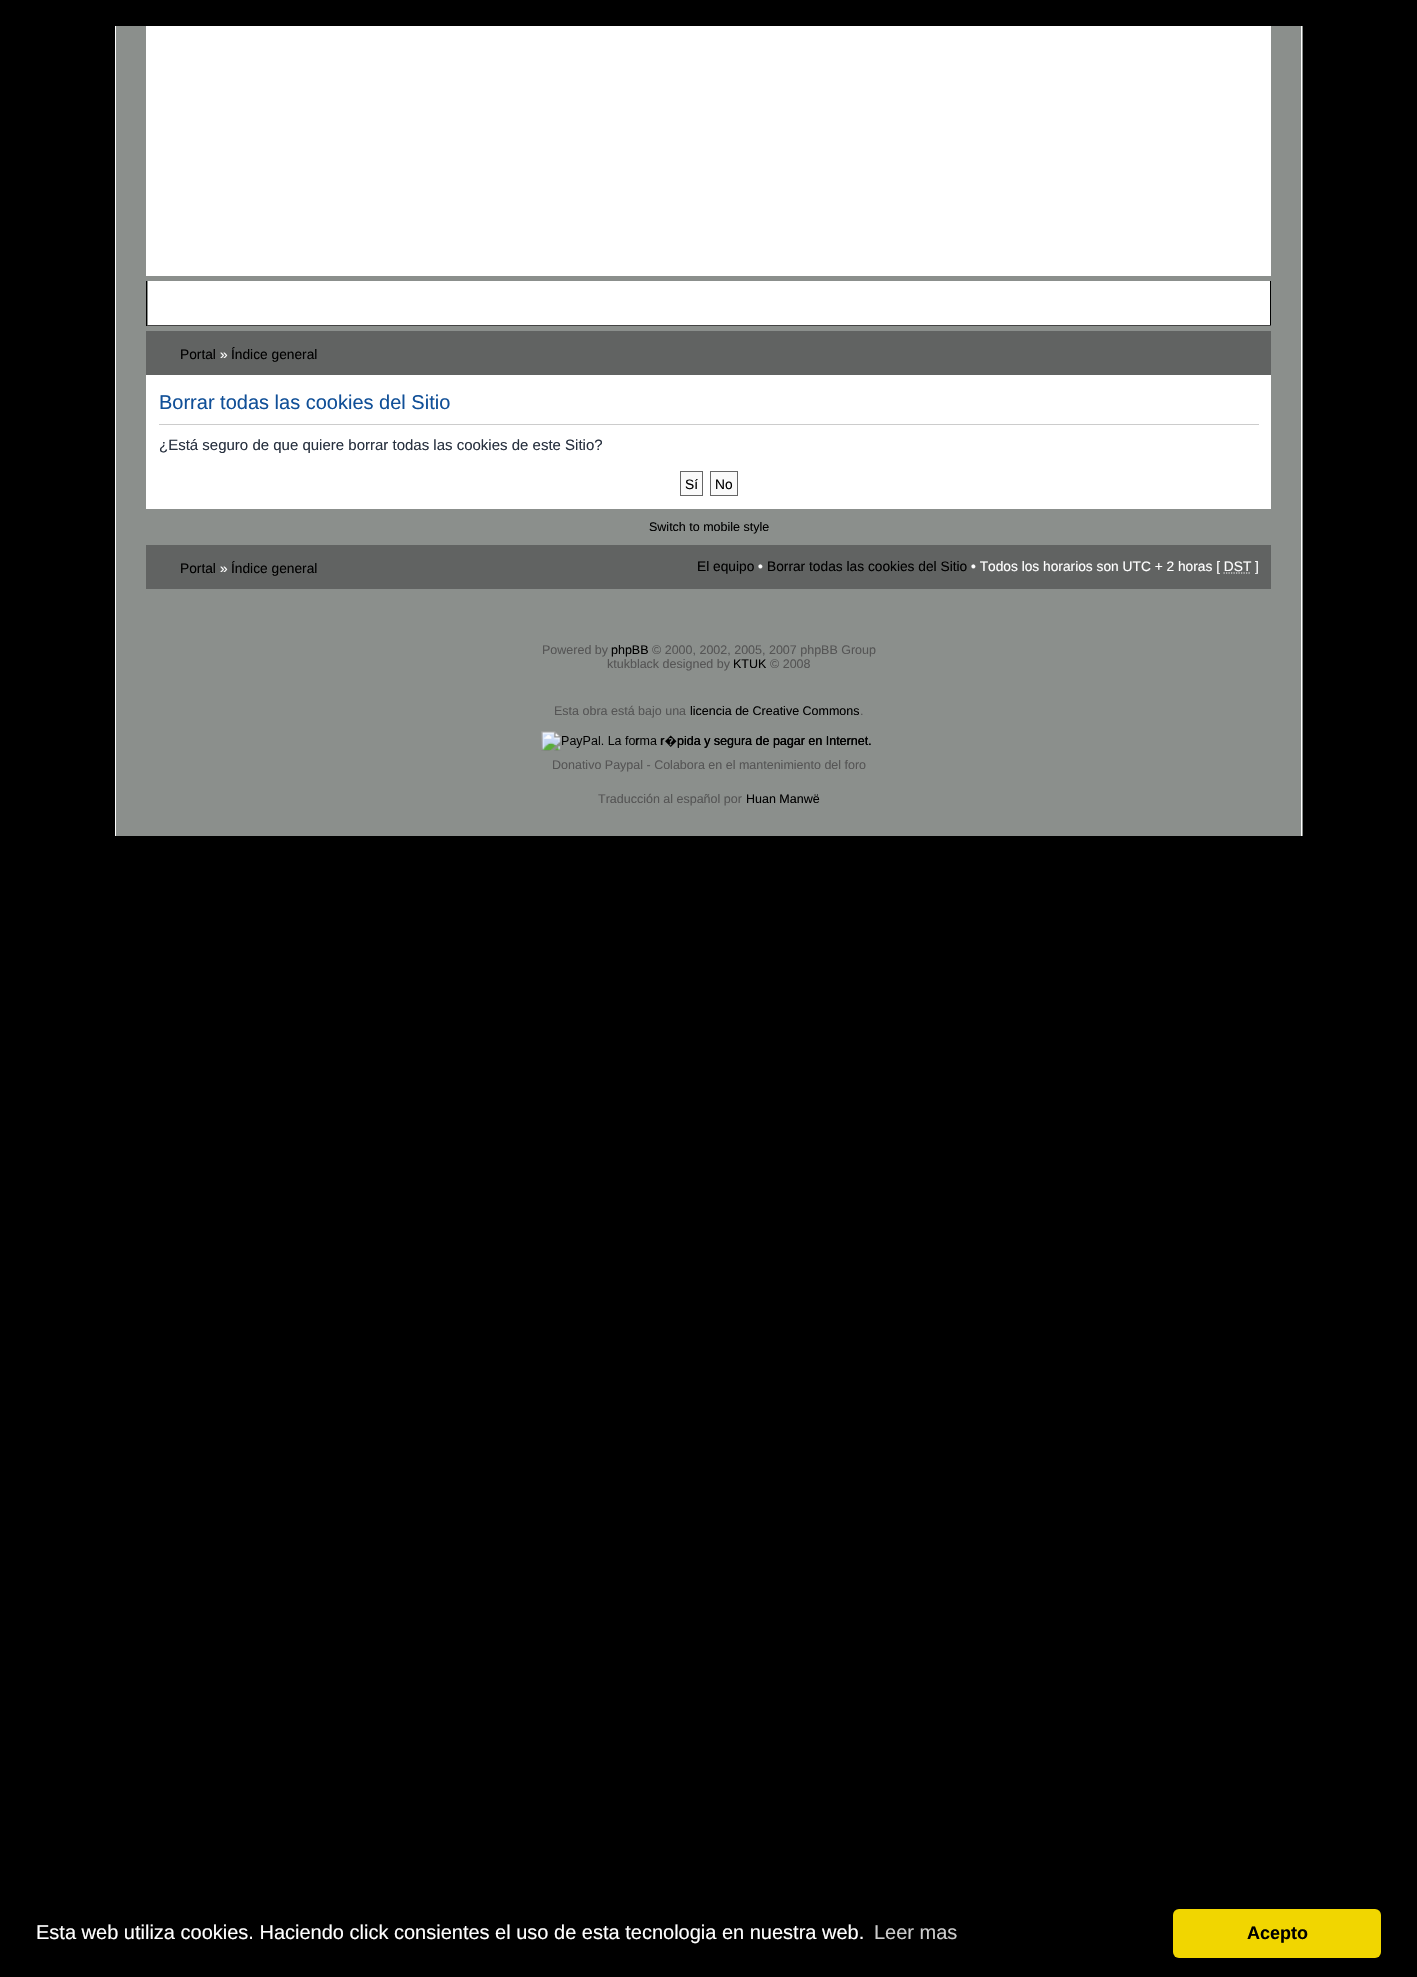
void draw(SkCanvas* canvas) {
	SkPaint fill;
	fill.setAntiAlias(true);
	auto makeFont = [&](const char* family, int weight, float size, bool italic = false) {
		SkFontStyle style(weight, SkFontStyle::kNormal_Width,
			italic ? SkFontStyle::kItalic_Slant : SkFontStyle::kUpright_Slant);
		SkFont result(fontMgr->matchFamilyStyle(family, style), size);
		result.setSubpixel(true);
		return result;
	};
	auto text = [&](const char* s, float x, float y, const SkFont& font) {
		canvas->drawString(s, x, y, font, fill);
	};
	auto box = [&](float l, float t, float r, float b) {
		canvas->drawRect(SkRect::MakeLTRB(l, t, r, b), fill);
	};
	auto roundBox = [&](float l, float t, float r, float b, float radius) {
		canvas->drawRoundRect(SkRect::MakeLTRB(l, t, r, b), radius, radius, fill);
	};
	auto picture = [&](const char* path, float l, float t, float r, float b) {
		auto image = SkImages::DeferredFromEncodedData(SkData::MakeFromFileName(path));
		canvas->drawImageRect(image, SkRect::MakeLTRB(l, t, r, b), SkSamplingOptions());
	};
	canvas->clear(0xFF000000);
	fill.setColor(0xFF8B8F8C);
	box(116, 26, 1303, 836);
	fill.setColor(0xFFFFFFFF);
	box(1301, 26, 1302, 836);
	box(115, 26, 116, 836);
	box(146, 26, 1271, 276);
	box(148, 281, 1270, 325);
	fill.setColor(0xFF000000);
	box(1270, 281, 1271, 326);
	fill.setColor(0xFF444444);
	box(146, 325, 1271, 326);
	fill.setColor(0xFF000000);
	box(146, 281, 147, 326);
	fill.setColor(0xFF616362);
	box(146, 331, 1271, 375);
	fill.setColor(0xFFFFFFFF);
	box(146, 375, 1271, 509);
	fill.setColor(0xFFCCCCCC);
	box(159, 424, 1259, 425);
	fill.setColor(0xFFFAFAFA);
	canvas->drawRect(SkRect::MakeLTRB(680.5f, 471.5f, 702.5f, 495.5f), fill);
	fill.setStyle(SkPaint::kStroke_Style);
	fill.setStrokeWidth(1);
	fill.setColor(0xFF666666);
	canvas->drawRect(SkRect::MakeLTRB(680.5f, 471.5f, 702.5f, 495.5f), fill);
	fill.setStyle(SkPaint::kFill_Style);
	fill.setColor(0xFFFAFAFA);
	canvas->drawRect(SkRect::MakeLTRB(710.5f, 471.5f, 737.5f, 495.5f), fill);
	fill.setStyle(SkPaint::kStroke_Style);
	fill.setColor(0xFF666666);
	canvas->drawRect(SkRect::MakeLTRB(710.5f, 471.5f, 737.5f, 495.5f), fill);
	fill.setStyle(SkPaint::kFill_Style);
	fill.setColor(0xFF616362);
	box(146, 545, 1271, 589);
	fill.setStyle(SkPaint::kStroke_Style);
	fill.setStrokeWidth(1.2f);
	fill.setColor(0xFFFFFFFF);
	fill.setPathEffect(SkDashPathEffect::Make({{1.25f, 1.25f}}, 0));
	canvas->drawPath(SkPathBuilder().moveTo(1223.5f, 573).lineTo(1251, 573).detach(), fill);
	fill.setPathEffect(nullptr);
	picture("image0.png", 541, 731, 871, 751);
	fill.setStyle(SkPaint::kFill_Style);
	fill.setColor(0xFFF1D600);
	roundBox(1173, 1909, 1381, 1958, 6);
	auto font1 = makeFont("Liberation Sans", 400, 13.75f);
	fill.setColor(0xFF000000);
	text("Portal", 180, 359, font1);
	fill.setColor(0xFFFFFFFF);
	text("»", 220, 359, font1);
	fill.setColor(0xFF000000);
	text("Índice general", 231, 359, font1);
	auto font2 = makeFont("Liberation Sans", 400, 20);
	fill.setColor(0xFF115098);
	text("Borrar todas las cookies del Sitio", 159, 409, font2);
	auto font3 = makeFont("Liberation Sans", 400, 15);
	fill.setColor(0xFF28313F);
	text("¿Está seguro de que quiere borrar todas las cookies de este Sitio?", 159, 450, font3);
	fill.setColor(0xFF000000);
	text("Sí", 685, 489, font1);
	text("No", 715, 489, font1);
	auto font4 = makeFont("Liberation Sans", 400, 12.5f);
	text("Switch to mobile style", 649, 531, font4);
	text("Portal", 180, 573, font1);
	fill.setColor(0xFFFFFFFF);
	text("»", 220, 573, font1);
	fill.setColor(0xFF000000);
	text("Índice general", 231, 573, font1);
	text("El equipo", 697, 571, font1);
	fill.setColor(0xFFFFFFFF);
	text("•", 758, 571, font1);
	fill.setColor(0xFF000000);
	text("Borrar todas las cookies del Sitio", 767, 571, font1);
	fill.setColor(0xFFFFFFFF);
	text("• Todos los horarios son UTC + 2 horas [ DST ]", 971, 571, font1);
	fill.setColor(0xFF555555);
	text("Powered by", 542, 654, font4);
	fill.setColor(0xFF000000);
	text("phpBB", 611, 654, font4);
	fill.setColor(0xFF555555);
	text("© 2000, 2002, 2005, 2007 phpBB Group", 652, 654, font4);
	text("ktukblack designed by", 607, 668, font4);
	fill.setColor(0xFF000000);
	text("KTUK", 733, 668, font4);
	fill.setColor(0xFF555555);
	text("© 2008", 770, 668, font4);
	text("Esta obra está bajo una", 554, 715, font4);
	fill.setColor(0xFF000000);
	text("licencia de Creative Commons", 690, 715, font4);
	fill.setColor(0xFF555555);
	text(".", 860, 715, font4);
	fill.setColor(0xFF000000);
	text("r", 635, 745, font4);
	text("r", 660, 745, font4);
	text("pida y segura de pagar en Internet.", 677, 745, font4);
	fill.setColor(0xFF555555);
	text("Donativo Paypal - Colabora en el mantenimiento del foro", 552, 769, font4);
	text("Traducción al español por", 598, 803, font4);
	fill.setColor(0xFF000000);
	text("Huan Manwë", 746, 803, font4);
	fill.setColor(0xFFFFFFFF);
	text("Esta web utiliza cookies. Haciendo click consientes el uso de esta tecnologia en nuestra web.", 36, 1939, font2);
	fill.setColor(0xFFCCCCCC);
	text("Leer mas", 874, 1939, font2);
	auto font5 = makeFont("Liberation Sans", 700, 18);
	fill.setColor(0xFF000000);
	text("Acepto", 1247, 1939, font5);
}
